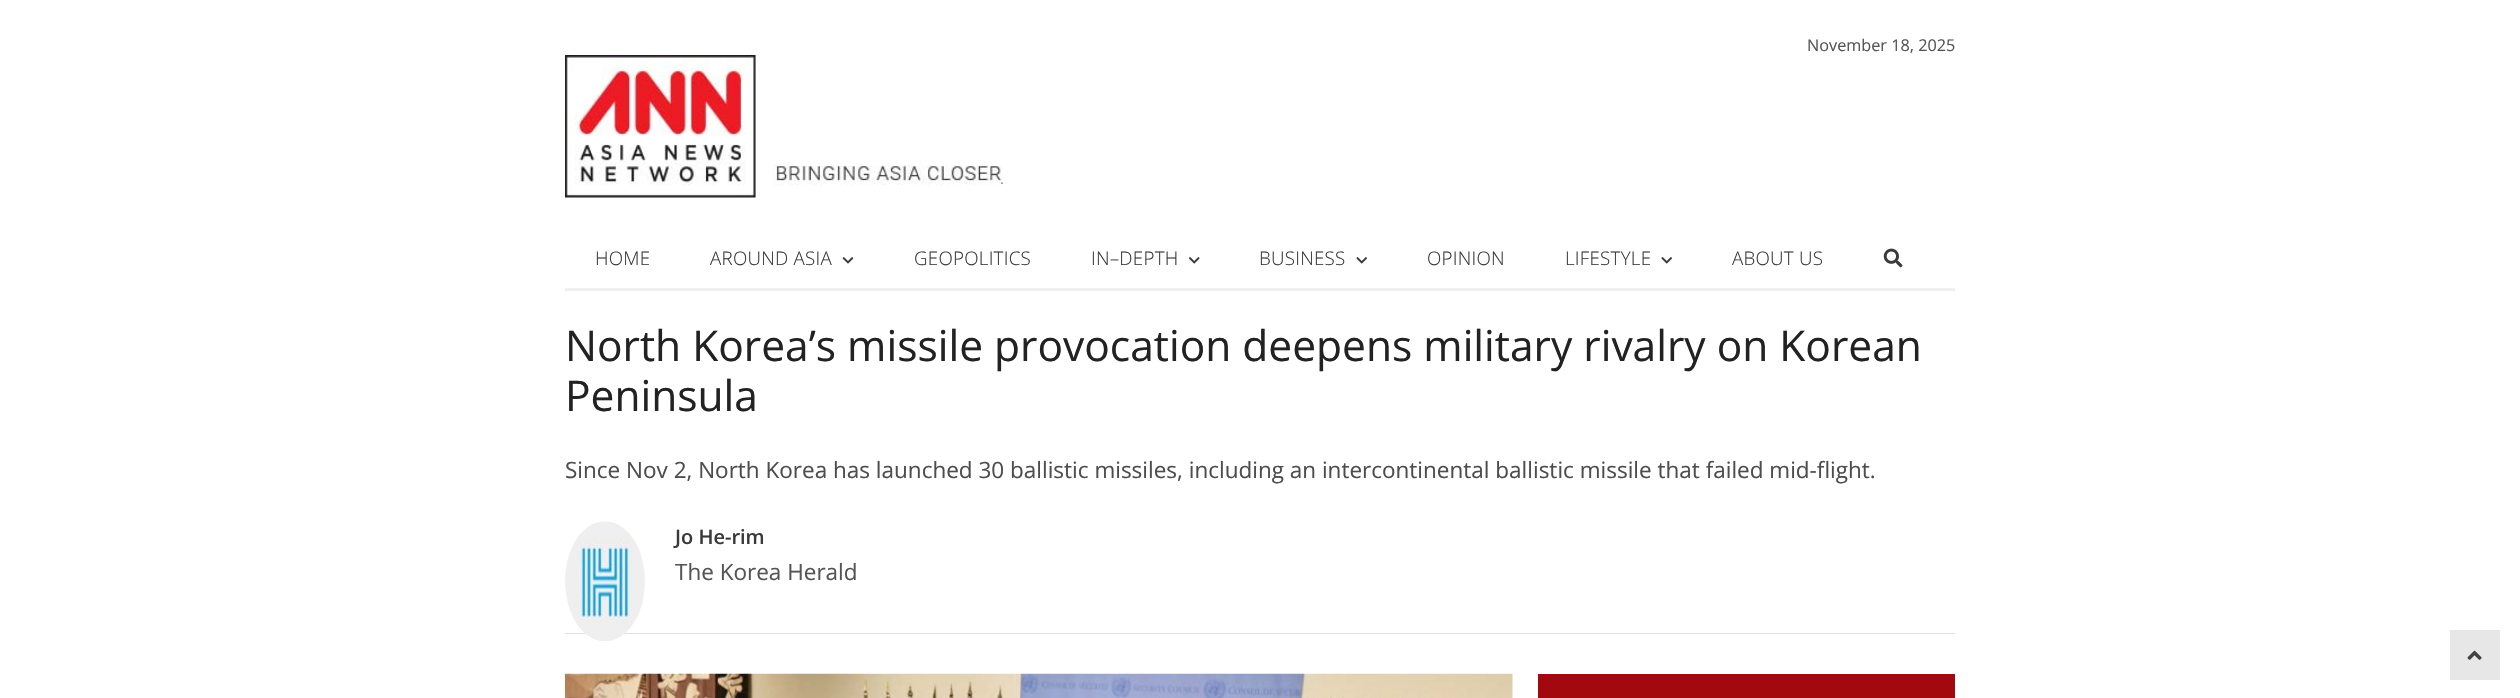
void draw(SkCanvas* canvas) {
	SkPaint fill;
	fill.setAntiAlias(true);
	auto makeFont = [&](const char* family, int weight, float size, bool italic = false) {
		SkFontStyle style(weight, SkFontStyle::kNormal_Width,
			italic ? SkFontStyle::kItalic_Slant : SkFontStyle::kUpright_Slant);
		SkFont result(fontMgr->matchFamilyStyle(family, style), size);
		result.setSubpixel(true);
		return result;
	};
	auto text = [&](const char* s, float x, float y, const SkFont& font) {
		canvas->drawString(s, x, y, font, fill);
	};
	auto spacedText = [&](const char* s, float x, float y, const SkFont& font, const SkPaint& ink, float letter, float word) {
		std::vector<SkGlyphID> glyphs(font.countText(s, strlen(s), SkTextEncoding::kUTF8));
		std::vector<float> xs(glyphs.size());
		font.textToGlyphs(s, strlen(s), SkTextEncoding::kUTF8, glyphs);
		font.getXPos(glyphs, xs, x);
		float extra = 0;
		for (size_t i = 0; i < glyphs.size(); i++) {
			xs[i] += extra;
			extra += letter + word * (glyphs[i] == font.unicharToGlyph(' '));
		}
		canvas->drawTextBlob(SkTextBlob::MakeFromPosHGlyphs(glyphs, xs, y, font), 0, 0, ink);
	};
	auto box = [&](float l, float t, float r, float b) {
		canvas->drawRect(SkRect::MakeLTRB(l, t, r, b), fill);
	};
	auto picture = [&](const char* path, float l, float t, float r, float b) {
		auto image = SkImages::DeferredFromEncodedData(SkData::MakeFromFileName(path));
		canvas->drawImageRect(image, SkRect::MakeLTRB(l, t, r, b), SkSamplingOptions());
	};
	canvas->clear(0xFFFFFFFF);
	picture("image0.png", 565, 55, 1003, 198);
	fill.setColor(0xFFF0F0F0);
	box(565, 288, 1955, 291);
	picture("image1.png", 842, 257, 854, 264);
	picture("image2.png", 1188, 257, 1200, 264);
	picture("image3.png", 1356, 257, 1367, 264);
	picture("image3.png", 1661, 257, 1672, 264);
	picture("image4.png", 1883, 248, 1903, 268);
	fill.setColor(0xFFE0E0E0);
	box(565, 633, 1955, 634);
	picture("image5.png", 565, 521, 645, 641);
	picture("image6.png", 565, 673, 1513, 698);
	fill.setColor(0xFFA4080F);
	box(1538, 674, 1955, 698);
	fill.setColor(0xFFE7E7E7);
	box(2450, 630, 2500, 680);
	picture("image7.png", 2467, 650, 2482, 660);
	auto font1 = makeFont("Open Sans", 400, 16.25f);
	fill.setColor(0xFF555555);
	text("November 18, 2025", 1807, 51, font1);
	auto font2 = makeFont("Open Sans", 300, 18.75f);
	fill.setColor(0xFF393A39);
	spacedText("HOME", 595, 265, font2, fill, 0.25f, 0);
	spacedText("AROUND ASIA", 710, 265, font2, fill, 0.25f, 0);
	spacedText("GEOPOLITICS", 914, 265, font2, fill, 0.25f, 0);
	spacedText("IN–DEPTH", 1091, 265, font2, fill, 0.25f, 0);
	spacedText("BUSINESS", 1259, 265, font2, fill, 0.25f, 0);
	spacedText("OPINION", 1427, 265, font2, fill, 0.25f, 0);
	spacedText("LIFESTYLE", 1565, 265, font2, fill, 0.25f, 0);
	spacedText("ABOUT US", 1732, 265, font2, fill, 0.25f, 0);
	auto font3 = makeFont("Open Sans", 400, 42.5f);
	fill.setColor(0xFF222222);
	text("North Korea’s missile provocation deepens military rivalry on Korean", 565, 361, font3);
	text("Peninsula", 565, 411, font3);
	auto font4 = makeFont("Open Sans", 400, 22.5f);
	fill.setColor(0xFF4D4D4D);
	text("Since Nov 2, North Korea has launched 30 ballistic missiles, including an intercontinental ballistic missile that failed mid-flight.", 565, 478, font4);
	auto font5 = makeFont("Open Sans", 600, 20);
	fill.setColor(0xFF393A39);
	text("Jo He-rim", 675, 544, font5);
	fill.setColor(0xFF555555);
	text("The Korea Herald", 675, 580, font4);
}
